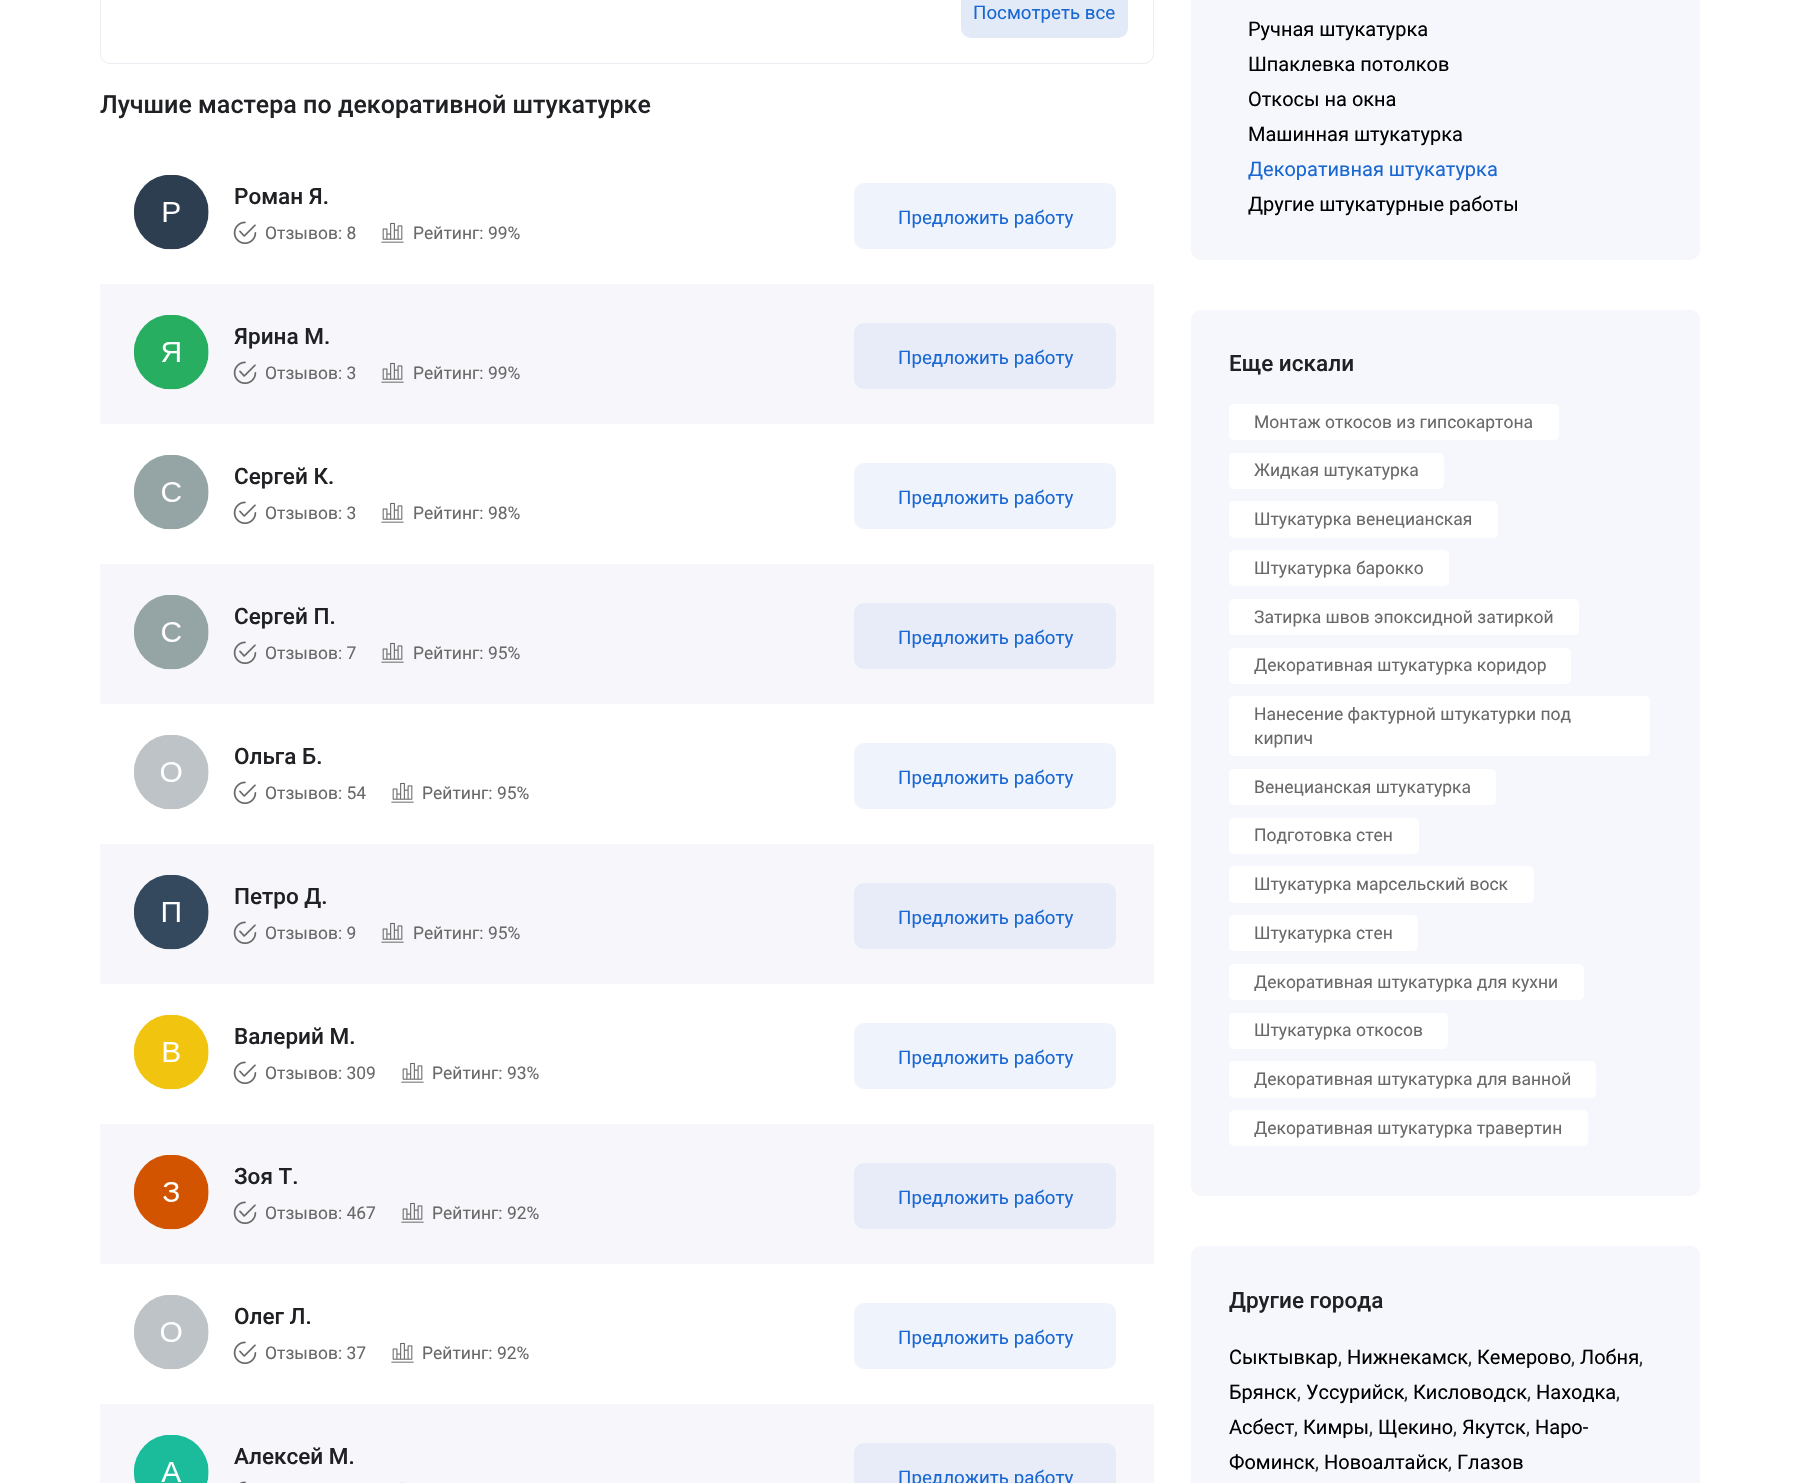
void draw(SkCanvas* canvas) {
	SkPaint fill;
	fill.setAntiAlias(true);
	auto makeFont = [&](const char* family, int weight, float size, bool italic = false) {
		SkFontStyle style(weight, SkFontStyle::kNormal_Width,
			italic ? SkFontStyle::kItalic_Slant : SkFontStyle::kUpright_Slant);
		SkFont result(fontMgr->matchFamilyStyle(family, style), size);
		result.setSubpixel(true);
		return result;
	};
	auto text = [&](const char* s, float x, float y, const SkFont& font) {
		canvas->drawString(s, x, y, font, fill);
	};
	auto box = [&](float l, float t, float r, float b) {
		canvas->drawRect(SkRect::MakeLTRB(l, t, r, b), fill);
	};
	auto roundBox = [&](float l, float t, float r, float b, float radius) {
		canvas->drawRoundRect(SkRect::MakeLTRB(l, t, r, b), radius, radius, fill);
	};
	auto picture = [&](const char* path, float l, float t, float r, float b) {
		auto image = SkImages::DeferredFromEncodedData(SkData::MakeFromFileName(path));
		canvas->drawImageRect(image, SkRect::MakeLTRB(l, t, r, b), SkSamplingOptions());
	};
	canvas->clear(0xFFFFFFFF);
	fill.setStyle(SkPaint::kStroke_Style);
	fill.setStrokeWidth(1);
	fill.setColor(0xFFECEDF2);
	canvas->drawRoundRect(SkRect::MakeLTRB(100.5f, -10.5f, 1153.5f, 63.5f), 9.5f, 9.5f, fill);
	fill.setStyle(SkPaint::kFill_Style);
	fill.setColor(0xFFE2EAF8);
	roundBox(961, -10, 1128, 38, 10);
	picture("image0.png", 134, 175, 209, 250);
	picture("image1.png", 233, 221, 257, 244);
	picture("image2.png", 381, 222, 404, 243);
	fill.setColor(0xFFEFF4FC);
	roundBox(854, 183, 1116, 249, 10);
	fill.setColor(0xFFF6F6FB);
	box(100, 284, 1154, 424);
	picture("image3.png", 134, 315, 209, 390);
	picture("image4.png", 233, 361, 257, 384);
	picture("image5.png", 381, 362, 404, 383);
	fill.setColor(0xFFE7ECF8);
	roundBox(854, 323, 1116, 389, 10);
	picture("image6.png", 134, 455, 209, 530);
	picture("image1.png", 233, 501, 257, 524);
	picture("image2.png", 381, 502, 404, 523);
	fill.setColor(0xFFEFF4FC);
	roundBox(854, 463, 1116, 529, 10);
	fill.setColor(0xFFF6F6FB);
	box(100, 564, 1154, 704);
	picture("image7.png", 134, 595, 209, 670);
	picture("image4.png", 233, 641, 257, 664);
	picture("image5.png", 381, 642, 404, 663);
	fill.setColor(0xFFE7ECF8);
	roundBox(854, 603, 1116, 669, 10);
	picture("image8.png", 134, 735, 209, 810);
	picture("image1.png", 233, 781, 257, 804);
	picture("image2.png", 391, 782, 414, 803);
	fill.setColor(0xFFEFF4FC);
	roundBox(854, 743, 1116, 809, 10);
	fill.setColor(0xFFF6F6FB);
	box(100, 844, 1154, 984);
	picture("image9.png", 134, 875, 209, 950);
	picture("image4.png", 233, 921, 257, 944);
	picture("image5.png", 381, 922, 404, 943);
	fill.setColor(0xFFE7ECF8);
	roundBox(854, 883, 1116, 949, 10);
	picture("image10.png", 134, 1015, 209, 1090);
	picture("image1.png", 233, 1061, 257, 1084);
	picture("image2.png", 401, 1062, 424, 1083);
	fill.setColor(0xFFEFF4FC);
	roundBox(854, 1023, 1116, 1089, 10);
	fill.setColor(0xFFF6F6FB);
	box(100, 1124, 1154, 1264);
	picture("image11.png", 134, 1155, 209, 1230);
	picture("image4.png", 233, 1201, 257, 1224);
	picture("image5.png", 401, 1202, 424, 1223);
	fill.setColor(0xFFE7ECF8);
	roundBox(854, 1163, 1116, 1229, 10);
	picture("image12.png", 134, 1295, 209, 1370);
	picture("image1.png", 233, 1341, 257, 1364);
	picture("image2.png", 391, 1342, 414, 1363);
	fill.setColor(0xFFEFF4FC);
	roundBox(854, 1303, 1116, 1369, 10);
	fill.setColor(0xFFF6F6FB);
	box(100, 1404, 1154, 1483);
	picture("image13.png", 134, 1435, 209, 1483);
	picture("image14.png", 239, 1481, 246, 1483);
	picture("image15.png", 400, 1482, 405, 1483);
	fill.setColor(0xFFE7ECF8);
	roundBox(854, 1443, 1116, 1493, 10);
	fill.setColor(0xFFF5F7FC);
	roundBox(1191, -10, 1700, 260, 10);
	roundBox(1191, 310, 1700, 1196, 10);
	fill.setColor(0xFFFFFFFF);
	roundBox(1229, 404, 1559, 440, 5);
	roundBox(1229, 453, 1444, 489, 5);
	roundBox(1229, 501, 1498, 538, 5);
	roundBox(1229, 550, 1449, 586, 5);
	roundBox(1229, 599, 1579, 635, 5);
	roundBox(1229, 648, 1571, 684, 5);
	roundBox(1229, 696, 1650, 756, 5);
	roundBox(1229, 769, 1496, 805, 5);
	roundBox(1229, 818, 1419, 854, 5);
	roundBox(1229, 866, 1534, 903, 5);
	roundBox(1229, 915, 1418, 951, 5);
	roundBox(1229, 964, 1584, 1000, 5);
	roundBox(1229, 1013, 1448, 1049, 5);
	roundBox(1229, 1061, 1596, 1098, 5);
	roundBox(1229, 1110, 1588, 1146, 5);
	fill.setColor(0xFFF5F7FC);
	roundBox(1191, 1246, 1700, 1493, 10);
	auto font1 = makeFont("Roboto", 400, 18.75f);
	fill.setColor(0xFF1967D2);
	text("Посмотреть все", 973, 19, font1);
	auto font2 = makeFont("Roboto", 500, 25);
	fill.setColor(0xFF202124);
	text("Лучшие мастера по декоративной штукатурке", 100, 113, font2);
	auto font3 = makeFont("Roboto", 500, 22.5f);
	text("Роман Я.", 234, 204, font3);
	auto font4 = makeFont("Roboto", 400, 17.5f);
	fill.setColor(0xFF696969);
	text("Отзывов: 8", 265, 239, font4);
	text("Рейтинг: 99%", 413, 239, font4);
	fill.setColor(0xFF1967D2);
	text("Предложить работу", 898, 224, font1);
	fill.setColor(0xFF202124);
	text("Ярина М.", 234, 344, font3);
	fill.setColor(0xFF696969);
	text("Отзывов: 3", 265, 379, font4);
	text("Рейтинг: 99%", 413, 379, font4);
	fill.setColor(0xFF1967D2);
	text("Предложить работу", 898, 364, font1);
	fill.setColor(0xFF202124);
	text("Сергей К.", 234, 484, font3);
	fill.setColor(0xFF696969);
	text("Отзывов: 3", 265, 519, font4);
	text("Рейтинг: 98%", 413, 519, font4);
	fill.setColor(0xFF1967D2);
	text("Предложить работу", 898, 504, font1);
	fill.setColor(0xFF202124);
	text("Сергей П.", 234, 624, font3);
	fill.setColor(0xFF696969);
	text("Отзывов: 7", 265, 659, font4);
	text("Рейтинг: 95%", 413, 659, font4);
	fill.setColor(0xFF1967D2);
	text("Предложить работу", 898, 644, font1);
	fill.setColor(0xFF202124);
	text("Ольга Б.", 234, 764, font3);
	fill.setColor(0xFF696969);
	text("Отзывов: 54", 265, 799, font4);
	text("Рейтинг: 95%", 422, 799, font4);
	fill.setColor(0xFF1967D2);
	text("Предложить работу", 898, 784, font1);
	fill.setColor(0xFF202124);
	text("Петро Д.", 234, 904, font3);
	fill.setColor(0xFF696969);
	text("Отзывов: 9", 265, 939, font4);
	text("Рейтинг: 95%", 413, 939, font4);
	fill.setColor(0xFF1967D2);
	text("Предложить работу", 898, 924, font1);
	fill.setColor(0xFF202124);
	text("Валерий М.", 234, 1044, font3);
	fill.setColor(0xFF696969);
	text("Отзывов: 309", 265, 1079, font4);
	text("Рейтинг: 93%", 432, 1079, font4);
	fill.setColor(0xFF1967D2);
	text("Предложить работу", 898, 1064, font1);
	fill.setColor(0xFF202124);
	text("Зоя Т.", 234, 1184, font3);
	fill.setColor(0xFF696969);
	text("Отзывов: 467", 265, 1219, font4);
	text("Рейтинг: 92%", 432, 1219, font4);
	fill.setColor(0xFF1967D2);
	text("Предложить работу", 898, 1204, font1);
	fill.setColor(0xFF202124);
	text("Олег Л.", 234, 1324, font3);
	fill.setColor(0xFF696969);
	text("Отзывов: 37", 265, 1359, font4);
	text("Рейтинг: 92%", 422, 1359, font4);
	fill.setColor(0xFF1967D2);
	text("Предложить работу", 898, 1344, font1);
	fill.setColor(0xFF202124);
	text("Алексей М.", 234, 1464, font3);
	fill.setColor(0xFF1967D2);
	text("Предложить работу", 898, 1484, font1);
	auto font5 = makeFont("Roboto", 400, 20);
	fill.setColor(0xFF000000);
	text("Ручная штукатурка", 1248, 36, font5);
	text("Шпаклевка потолков", 1248, 71, font5);
	text("Откосы на окна", 1248, 106, font5);
	text("Машинная штукатурка", 1248, 141, font5);
	fill.setColor(0xFF1967D2);
	text("Декоративная штукатурка", 1248, 176, font5);
	fill.setColor(0xFF000000);
	text("Другие штукатурные работы", 1248, 211, font5);
	fill.setColor(0xFF202124);
	text("Еще искали", 1229, 371, font3);
	fill.setColor(0xFF696969);
	text("Монтаж откосов из гипсокартона", 1254, 428, font4);
	text("Жидкая штукатурка", 1254, 476, font4);
	text("Штукатурка венецианская", 1254, 525, font4);
	text("Штукатурка барокко", 1254, 574, font4);
	text("Затирка швов эпоксидной затиркой", 1254, 623, font4);
	text("Декоративная штукатурка коридор", 1254, 671, font4);
	text("Нанесение фактурной штукатурки под", 1254, 720, font4);
	text("кирпич", 1254, 744, font4);
	text("Венецианская штукатурка", 1254, 793, font4);
	text("Подготовка стен", 1254, 841, font4);
	text("Штукатурка марсельский воск", 1254, 890, font4);
	text("Штукатурка стен", 1254, 939, font4);
	text("Декоративная штукатурка для кухни", 1254, 988, font4);
	text("Штукатурка откосов", 1254, 1036, font4);
	text("Декоративная штукатурка для ванной", 1254, 1085, font4);
	text("Декоративная штукатурка травертин", 1254, 1134, font4);
	fill.setColor(0xFF202124);
	text("Другие города", 1229, 1308, font3);
	fill.setColor(0xFF000000);
	text("Сыктывкар", 1229, 1364, font5);
	fill.setColor(0xFF363636);
	text(",", 1338, 1364, font5);
	fill.setColor(0xFF000000);
	text("Нижнекамск", 1347, 1364, font5);
	fill.setColor(0xFF363636);
	text(",", 1468, 1364, font5);
	fill.setColor(0xFF000000);
	text("Кемерово", 1477, 1364, font5);
	fill.setColor(0xFF363636);
	text(",", 1571, 1364, font5);
	fill.setColor(0xFF000000);
	text("Лобня", 1580, 1364, font5);
	fill.setColor(0xFF363636);
	text(",", 1639, 1364, font5);
	fill.setColor(0xFF000000);
	text("Брянск", 1229, 1399, font5);
	fill.setColor(0xFF363636);
	text(",", 1297, 1399, font5);
	fill.setColor(0xFF000000);
	text("Уссурийск", 1306, 1399, font5);
	fill.setColor(0xFF363636);
	text(",", 1404, 1399, font5);
	fill.setColor(0xFF000000);
	text("Кисловодск", 1413, 1399, font5);
	fill.setColor(0xFF363636);
	text(",", 1527, 1399, font5);
	fill.setColor(0xFF000000);
	text("Находка", 1536, 1399, font5);
	fill.setColor(0xFF363636);
	text(",", 1616, 1399, font5);
	fill.setColor(0xFF000000);
	text("Асбест", 1229, 1434, font5);
	fill.setColor(0xFF363636);
	text(",", 1294, 1434, font5);
	fill.setColor(0xFF000000);
	text("Кимры", 1303, 1434, font5);
	fill.setColor(0xFF363636);
	text(",", 1369, 1434, font5);
	fill.setColor(0xFF000000);
	text("Щекино", 1378, 1434, font5);
	fill.setColor(0xFF363636);
	text(",", 1453, 1434, font5);
	fill.setColor(0xFF000000);
	text("Якутск", 1462, 1434, font5);
	fill.setColor(0xFF363636);
	text(",", 1526, 1434, font5);
	fill.setColor(0xFF000000);
	text("Наро-", 1535, 1434, font5);
	text("Фоминск", 1229, 1469, font5);
	fill.setColor(0xFF363636);
	text(",", 1315, 1469, font5);
	fill.setColor(0xFF000000);
	text("Новоалтайск", 1324, 1469, font5);
	fill.setColor(0xFF363636);
	text(",", 1448, 1469, font5);
	fill.setColor(0xFF000000);
	text("Глазов", 1457, 1469, font5);
}
